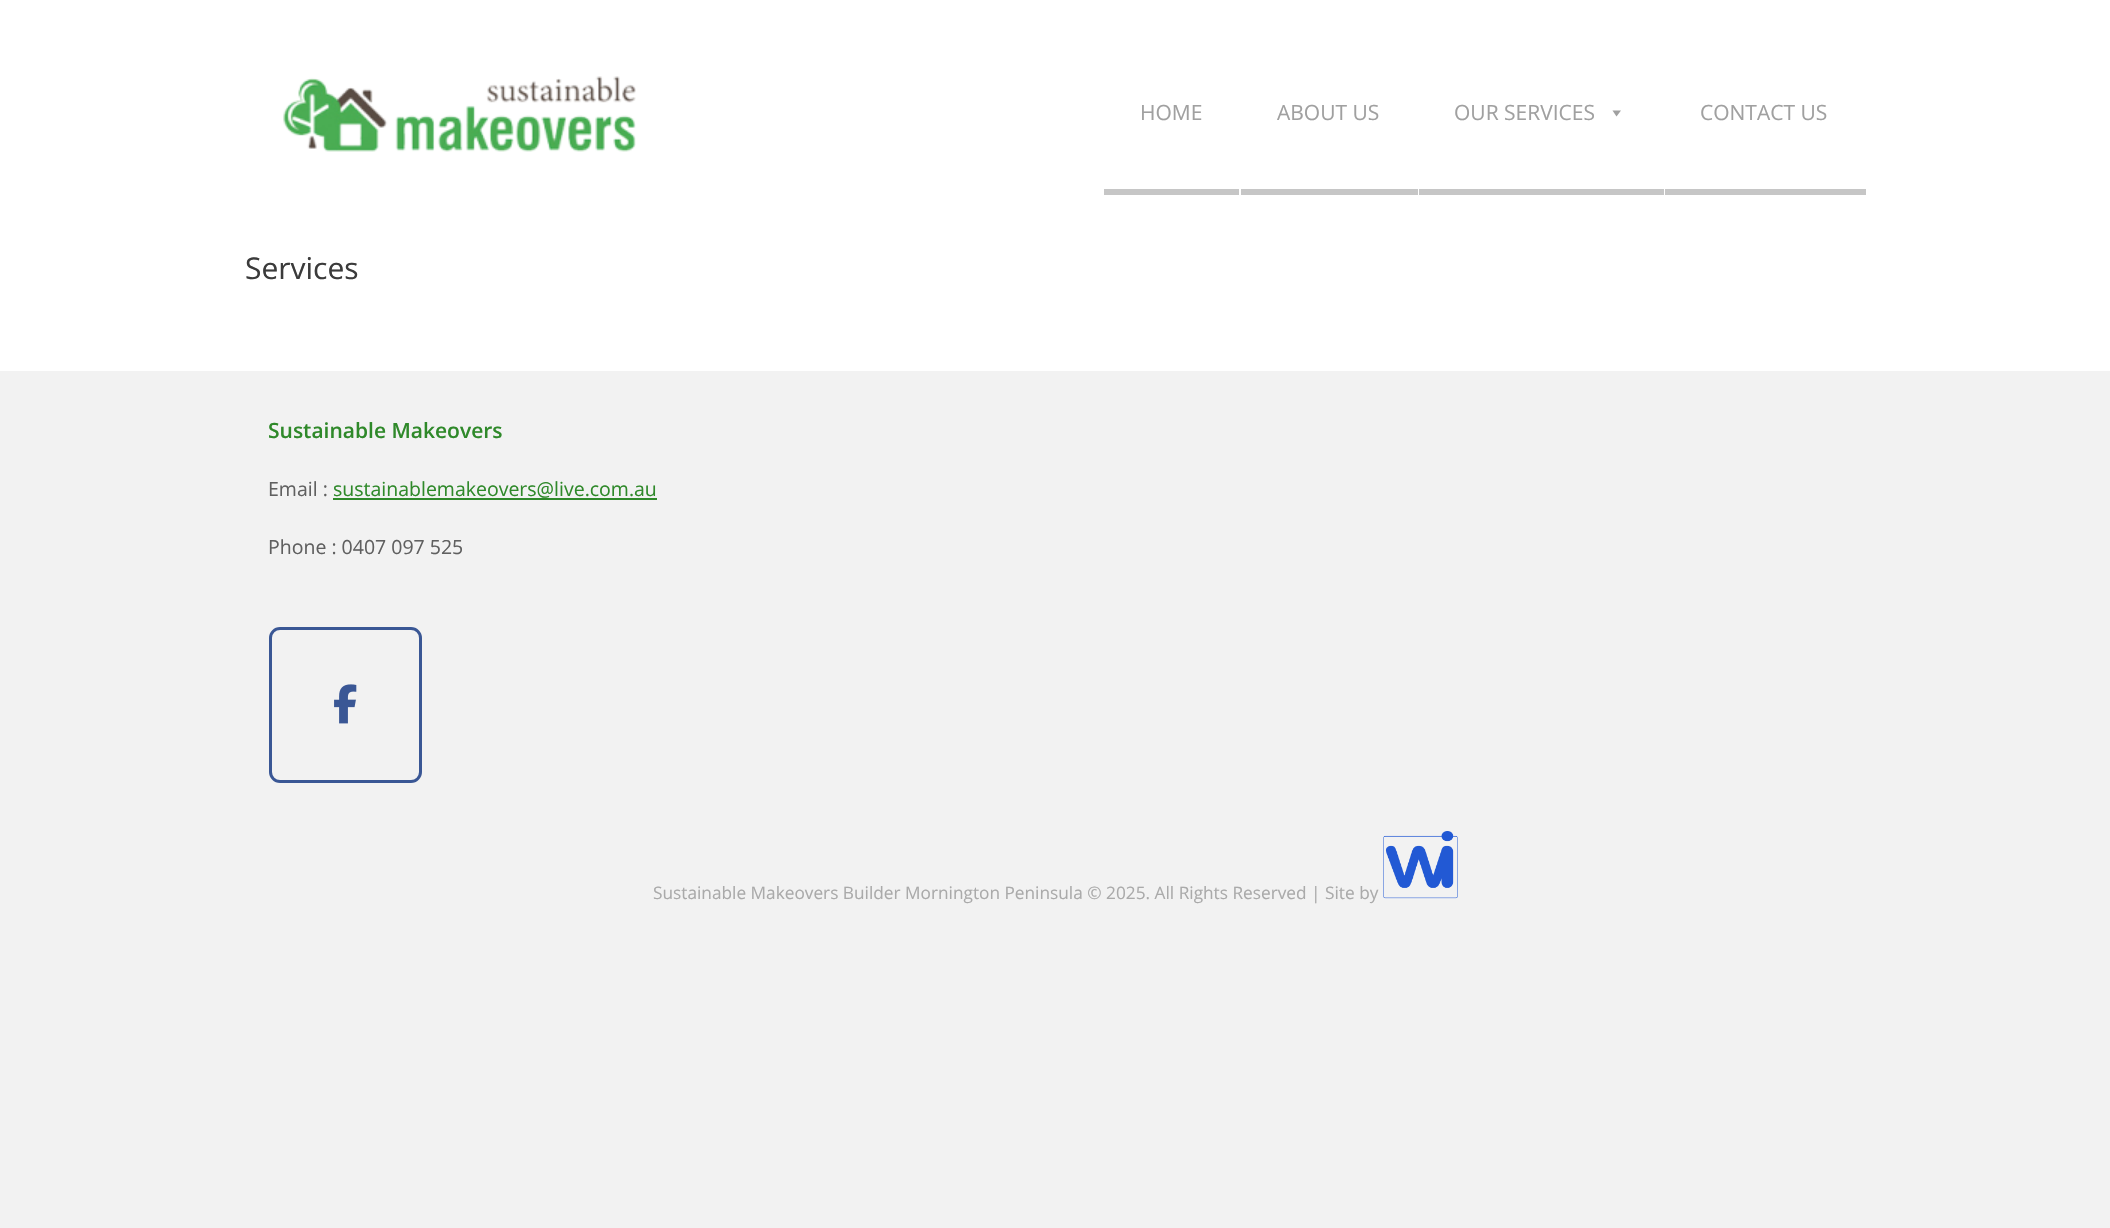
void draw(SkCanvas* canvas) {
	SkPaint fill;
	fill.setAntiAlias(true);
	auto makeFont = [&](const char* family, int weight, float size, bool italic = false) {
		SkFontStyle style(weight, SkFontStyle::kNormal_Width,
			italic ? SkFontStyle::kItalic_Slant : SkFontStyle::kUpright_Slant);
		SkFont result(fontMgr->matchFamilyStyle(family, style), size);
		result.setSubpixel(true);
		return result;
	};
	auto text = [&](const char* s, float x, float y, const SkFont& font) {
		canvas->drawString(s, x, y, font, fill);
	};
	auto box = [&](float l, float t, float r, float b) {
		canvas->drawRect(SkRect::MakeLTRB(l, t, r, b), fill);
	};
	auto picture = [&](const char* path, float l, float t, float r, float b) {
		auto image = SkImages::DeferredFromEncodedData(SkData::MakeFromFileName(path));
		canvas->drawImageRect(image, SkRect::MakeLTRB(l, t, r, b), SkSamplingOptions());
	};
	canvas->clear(0xFFF2F2F2);
	fill.setColor(0xFFFFFFFF);
	box(0, 0, 2110, 371);
	picture("image0.png", 283, 76, 636, 152);
	fill.setColor(0xFFC6C6C6);
	box(1104, 189, 1239, 195);
	box(1241, 189, 1418, 195);
	box(1419, 189, 1664, 195);
	fill.setColor(0xFFA0A0A0);
	canvas->drawPath(SkPathBuilder().moveTo(1621, 110.5f).lineTo(1616.5f, 116.5f).lineTo(1612.5f, 110.5f).close().detach(), fill);
	fill.setColor(0xFFC6C6C6);
	box(1665, 189, 1866, 195);
	fill.setColor(0xFF2F892A);
	box(333, 498, 657, 500);
	fill.setStyle(SkPaint::kStroke_Style);
	fill.setStrokeWidth(3);
	fill.setColor(0xFF3A5795);
	canvas->drawRoundRect(SkRect::MakeLTRB(270.5f, 628.5f, 420.5f, 781.5f), 9.5f, 9.5f, fill);
	picture("image1.png", 334, 684, 357, 724);
	picture("image2.png", 1383, 831, 1458, 899);
	auto font1 = makeFont("Open Sans", 400, 21);
	fill.setStyle(SkPaint::kFill_Style);
	fill.setColor(0xFFA0A0A0);
	text("HOME", 1140, 120, font1);
	text("ABOUT US", 1277, 120, font1);
	text("OUR SERVICES", 1454, 120, font1);
	text("CONTACT US", 1700, 120, font1);
	auto font2 = makeFont("Open Sans", 400, 30);
	fill.setColor(0xFF3B3B3B);
	text("Services", 245, 279, font2);
	auto font3 = makeFont("Open Sans", 600, 21);
	fill.setColor(0xFF2F892A);
	text("Sustainable Makeovers", 268, 438, font3);
	auto font4 = makeFont("Open Sans", 400, 19.5f);
	fill.setColor(0xFF606060);
	text("Email :", 268, 496, font4);
	fill.setColor(0xFF2F892A);
	text("sustainablemakeovers@live.com.au", 333, 496, font4);
	fill.setColor(0xFF606060);
	text("Phone : 0407 097 525", 268, 554, font4);
	auto font5 = makeFont("Open Sans", 400, 17.25f);
	fill.setColor(0xFFAAAAAA);
	text("Sustainable Makeovers Builder Mornington Peninsula © 2025. All Rights Reserved | Site by", 653, 899, font5);
}
